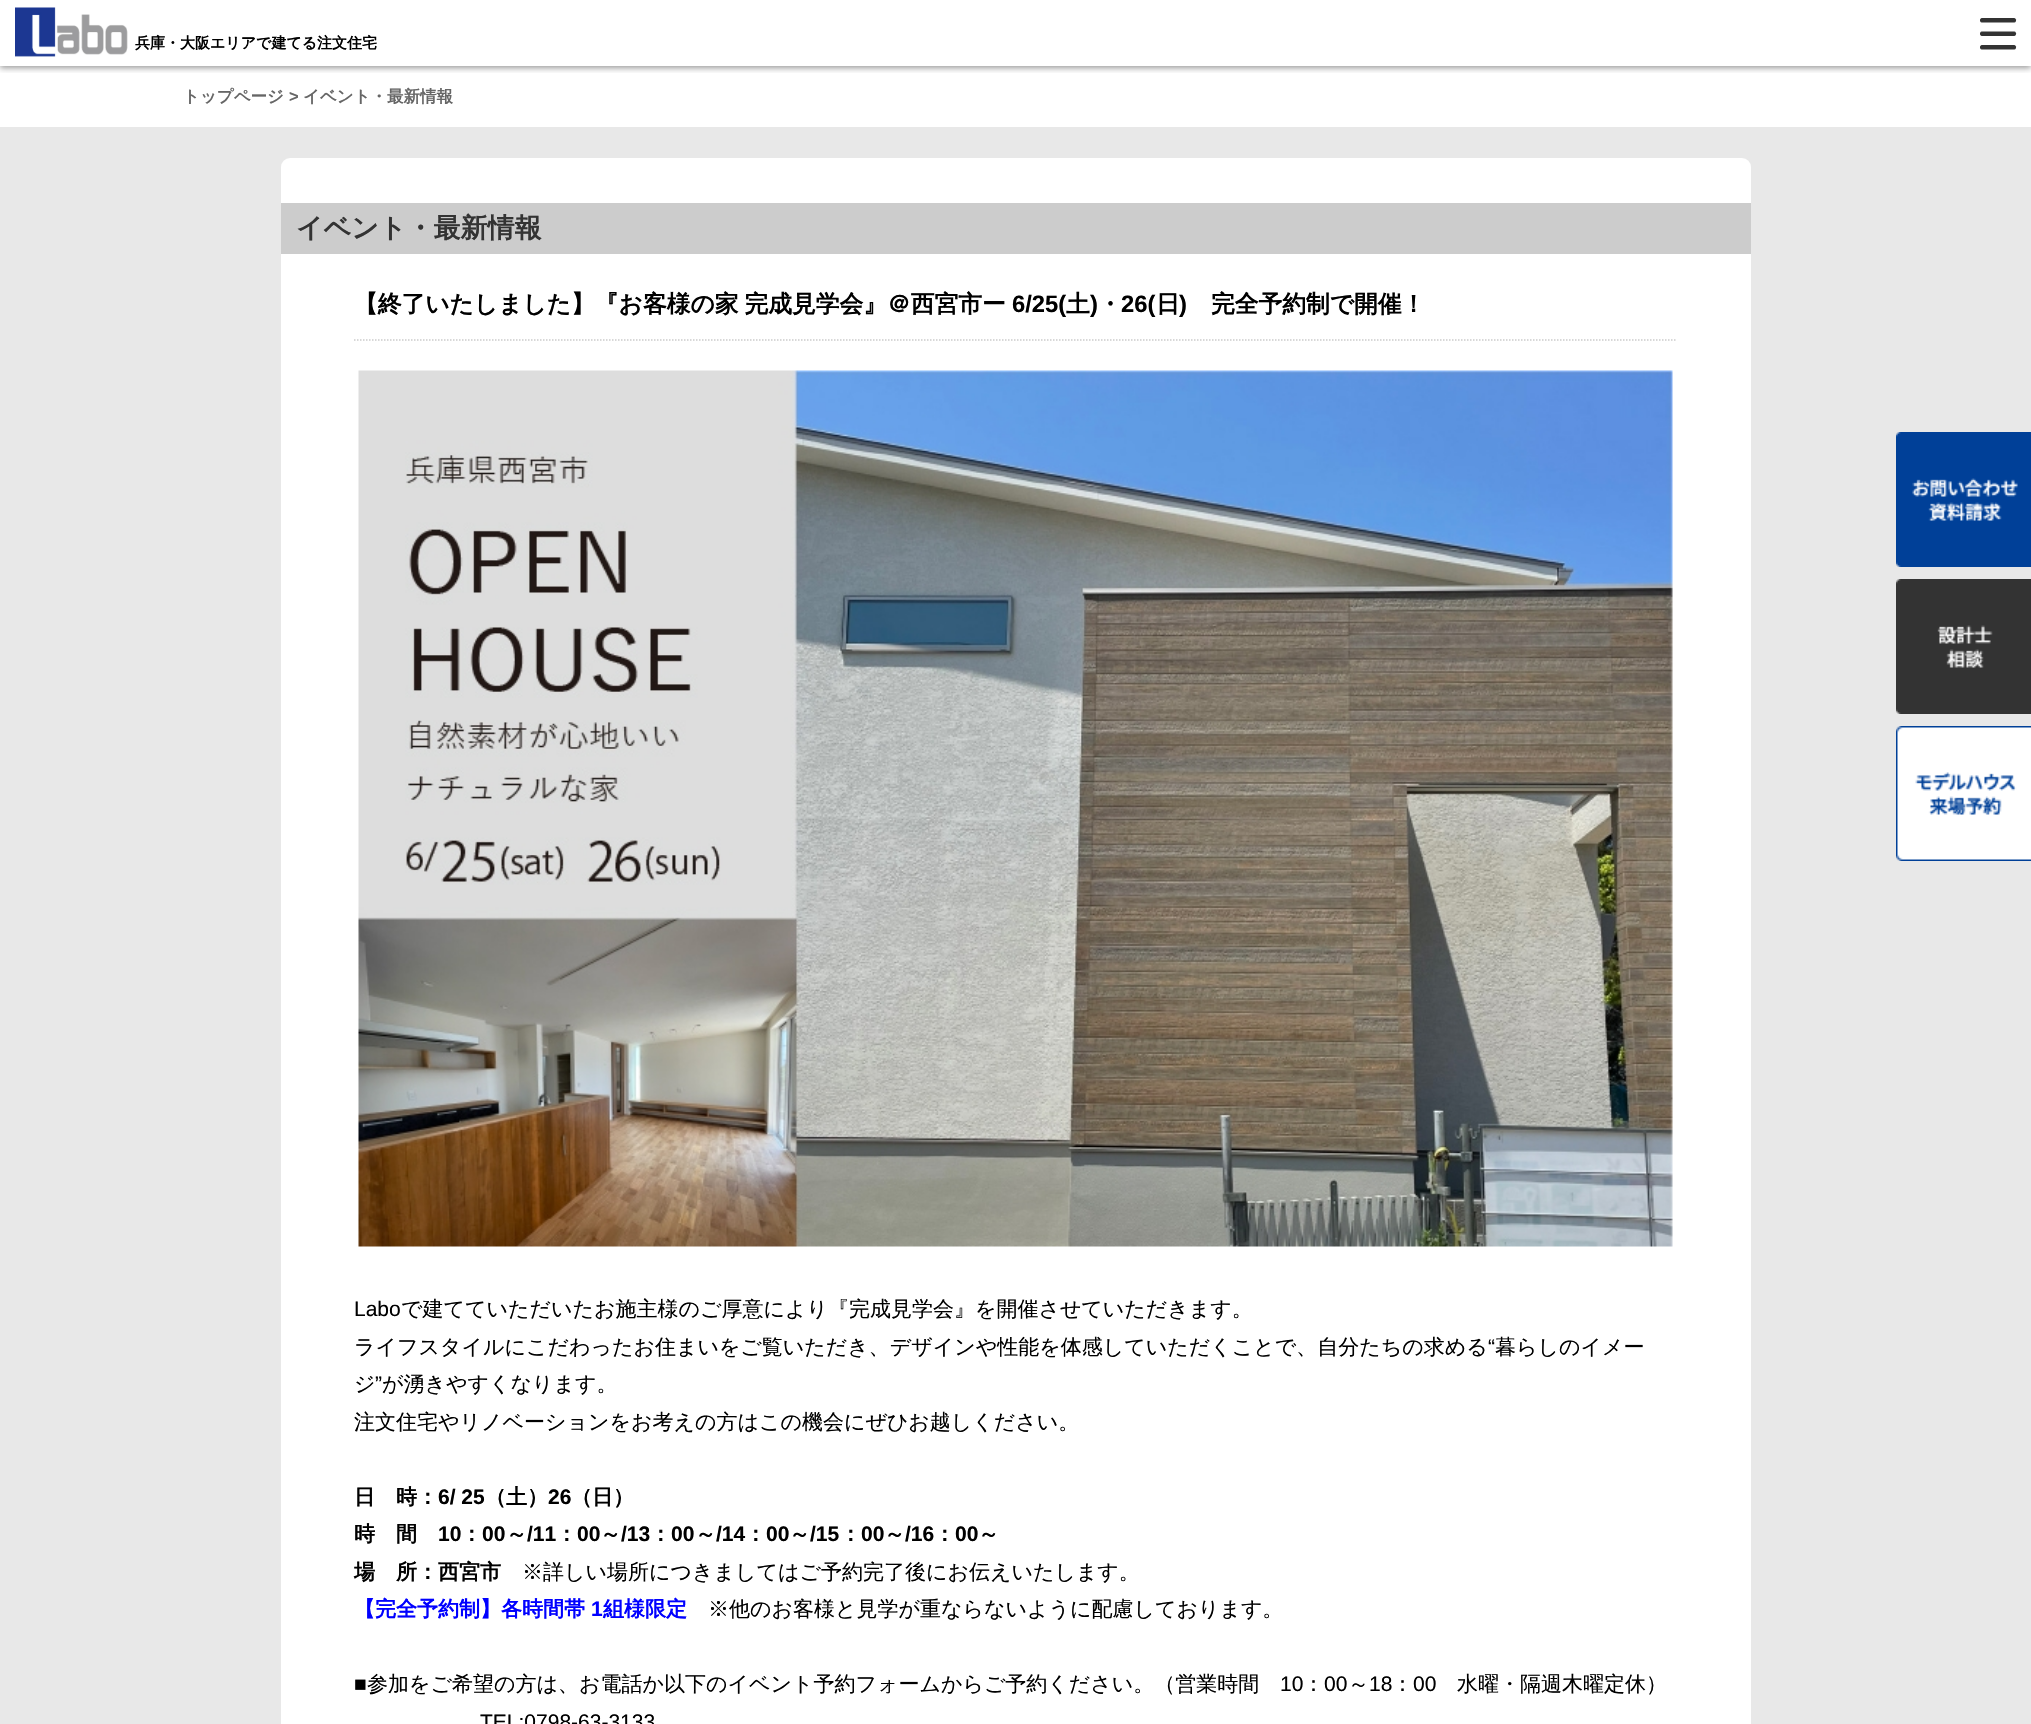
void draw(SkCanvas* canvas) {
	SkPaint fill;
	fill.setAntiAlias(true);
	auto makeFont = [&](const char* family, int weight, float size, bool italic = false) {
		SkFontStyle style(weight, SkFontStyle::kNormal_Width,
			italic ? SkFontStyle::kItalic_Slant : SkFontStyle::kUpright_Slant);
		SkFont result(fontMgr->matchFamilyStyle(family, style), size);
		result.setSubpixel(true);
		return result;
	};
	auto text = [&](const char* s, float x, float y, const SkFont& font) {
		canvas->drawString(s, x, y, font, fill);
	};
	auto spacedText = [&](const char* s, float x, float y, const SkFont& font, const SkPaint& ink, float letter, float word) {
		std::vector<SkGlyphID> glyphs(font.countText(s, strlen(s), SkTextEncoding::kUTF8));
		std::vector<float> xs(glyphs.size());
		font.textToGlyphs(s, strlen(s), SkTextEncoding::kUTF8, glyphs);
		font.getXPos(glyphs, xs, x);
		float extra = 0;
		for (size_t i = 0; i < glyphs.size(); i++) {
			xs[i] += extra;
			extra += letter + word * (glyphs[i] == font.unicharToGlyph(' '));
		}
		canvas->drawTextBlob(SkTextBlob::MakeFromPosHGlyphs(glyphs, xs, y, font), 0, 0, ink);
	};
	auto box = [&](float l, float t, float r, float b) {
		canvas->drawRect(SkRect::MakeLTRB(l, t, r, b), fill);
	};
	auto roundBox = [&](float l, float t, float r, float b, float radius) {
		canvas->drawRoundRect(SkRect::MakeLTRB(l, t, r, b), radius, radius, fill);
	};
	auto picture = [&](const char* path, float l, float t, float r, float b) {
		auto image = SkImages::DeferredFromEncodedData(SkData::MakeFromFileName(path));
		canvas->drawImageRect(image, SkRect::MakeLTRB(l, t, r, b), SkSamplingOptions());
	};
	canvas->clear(0xFFFFFFFF);
	canvas->save();
	canvas->clipRect(SkRect::MakeLTRB(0, 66, 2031, 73));
	fill.setColor(0x66000000);
	fill.setMaskFilter(SkMaskFilter::MakeBlur(kNormal_SkBlurStyle, 3));
	canvas->drawRect(SkRect::MakeLTRB(0, 2, 2031, 68), fill);
	fill.setMaskFilter(nullptr);
	canvas->restore();
	picture("image0.png", 15, 7, 128, 57);
	picture("image1.png", 1980, 18, 2017, 50);
	fill.setColor(0xFFE8E8E8);
	box(0, 127, 2031, 1724);
	fill.setColor(0xFFFFFFFF);
	roundBox(281, 158, 1751, 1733, 9);
	fill.setColor(0xFFCCCCCC);
	box(281, 203, 1751, 254);
	fill.setStyle(SkPaint::kStroke_Style);
	fill.setStrokeWidth(1.5f);
	fill.setPathEffect(SkDashPathEffect::Make({{1.5f, 1.5f}}, 0));
	canvas->drawPath(SkPathBuilder().moveTo(354, 340).lineTo(1677, 340).detach(), fill);
	fill.setPathEffect(nullptr);
	picture("image2.png", 358, 370, 1673, 1247);
	picture("image3.png", 1896, 432, 2031, 567);
	picture("image4.png", 1896, 579, 2031, 714);
	picture("image5.png", 1896, 726, 2031, 861);
	auto font1 = makeFont("WenQuanYi Zen Hei", 700, 15);
	fill.setStyle(SkPaint::kFill_Style);
	fill.setColor(0xFF000000);
	text("兵庫・大阪エリアで建てる注文住宅", 135, 48, font1);
	auto font2 = makeFont("WenQuanYi Zen Hei", 700, 16.5f);
	fill.setColor(0xFF666666);
	text("トップページ", 183, 102, font2);
	auto font3 = makeFont("Liberation Sans", 700, 16.5f);
	text(">", 289, 102, font3);
	text("イベント・最新情報", 303, 102, font2);
	auto font4 = makeFont("WenQuanYi Zen Hei", 700, 27);
	fill.setColor(0xFF333333);
	text("イベント・最新情報", 296, 237, font4);
	auto font5 = makeFont("WenQuanYi Zen Hei", 700, 23.75f);
	fill.setColor(0xFF000000);
	spacedText("【終了いたしました】『お客様の家 完成見学会』＠西宮市ー", 354, 312, font5, fill, 0, -1);
	auto font6 = makeFont("Liberation Sans", 700, 23.75f);
	text("6/25(", 1012, 312, font6);
	text("土", 1066, 312, font5);
	text(")", 1090, 312, font6);
	text("・", 1098, 312, font5);
	text("26(", 1121, 312, font6);
	text("日", 1156, 312, font5);
	text(")", 1179, 312, font6);
	text("完全予約制で開催！", 1211, 312, font5);
	auto font7 = makeFont("Liberation Sans", 400, 21);
	text("Labo", 354, 1316, font7);
	auto font8 = makeFont("WenQuanYi Zen Hei", 500, 21);
	text("で建てていただいたお施主様のご厚意により『完成見学会』を開催させていただきます。", 401, 1316, font8);
	text("ライフスタイルにこだわったお住まいをご覧いただき、デザインや性能を体感していただくことで、自分たちの求める", 354, 1354, font8);
	text("“", 1488, 1354, font7);
	text("暮らしのイメー", 1495, 1354, font8);
	text("ジ", 354, 1391, font8);
	text("”", 375, 1391, font7);
	text("が湧きやすくなります。", 382, 1391, font8);
	text("注文住宅やリノベーションをお考えの方はこの機会にぜひお越しください。", 354, 1429, font8);
	auto font9 = makeFont("WenQuanYi Zen Hei", 700, 21);
	text("日　時：", 354, 1504, font9);
	auto font10 = makeFont("Liberation Sans", 700, 21);
	text("6/ 25", 438, 1504, font10);
	text("（土）", 485, 1504, font9);
	text("26", 548, 1504, font10);
	text("（日）", 571, 1504, font9);
	text("時　間", 354, 1541, font9);
	text("10", 438, 1541, font10);
	text("：", 461, 1541, font9);
	text("00", 482, 1541, font10);
	text("～", 506, 1541, font9);
	text("/11", 527, 1541, font10);
	text("：", 556, 1541, font9);
	text("00", 577, 1541, font10);
	text("～", 600, 1541, font9);
	text("/13", 621, 1541, font10);
	text("：", 650, 1541, font9);
	text("00", 671, 1541, font10);
	text("～", 695, 1541, font9);
	text("/14", 716, 1541, font10);
	text("：", 745, 1541, font9);
	text("00", 766, 1541, font10);
	text("～", 789, 1541, font9);
	text("/15", 810, 1541, font10);
	text("：", 840, 1541, font9);
	text("00", 861, 1541, font10);
	text("～", 884, 1541, font9);
	text("/16", 905, 1541, font10);
	text("：", 934, 1541, font9);
	text("00", 955, 1541, font10);
	text("～", 978, 1541, font9);
	text("場　所：西宮市", 354, 1579, font9);
	text("※詳しい場所につきましてはご予約完了後にお伝えいたします。", 522, 1579, font8);
	fill.setColor(0xFF0000FF);
	text("【完全予約制】各時間帯", 354, 1616, font9);
	text("1", 591, 1616, font10);
	text("組様限定", 603, 1616, font9);
	fill.setColor(0xFF000000);
	text("※他のお客様と見学が重ならないように配慮しております。", 708, 1616, font8);
	text("■", 354, 1691, font7);
	text("参加をご希望の方は、お電話か以下のイベント予約フォームからご予約ください。（営業時間", 367, 1691, font8);
	text("10", 1280, 1691, font7);
	text("：", 1303, 1691, font8);
	text("00", 1324, 1691, font7);
	text("～", 1348, 1691, font8);
	text("18", 1369, 1691, font7);
	text("：", 1392, 1691, font8);
	text("00", 1413, 1691, font7);
	text("水曜・隔週木曜定休）", 1457, 1691, font8);
	text("TEL:0798-63-3133", 480, 1729, font7);
}
